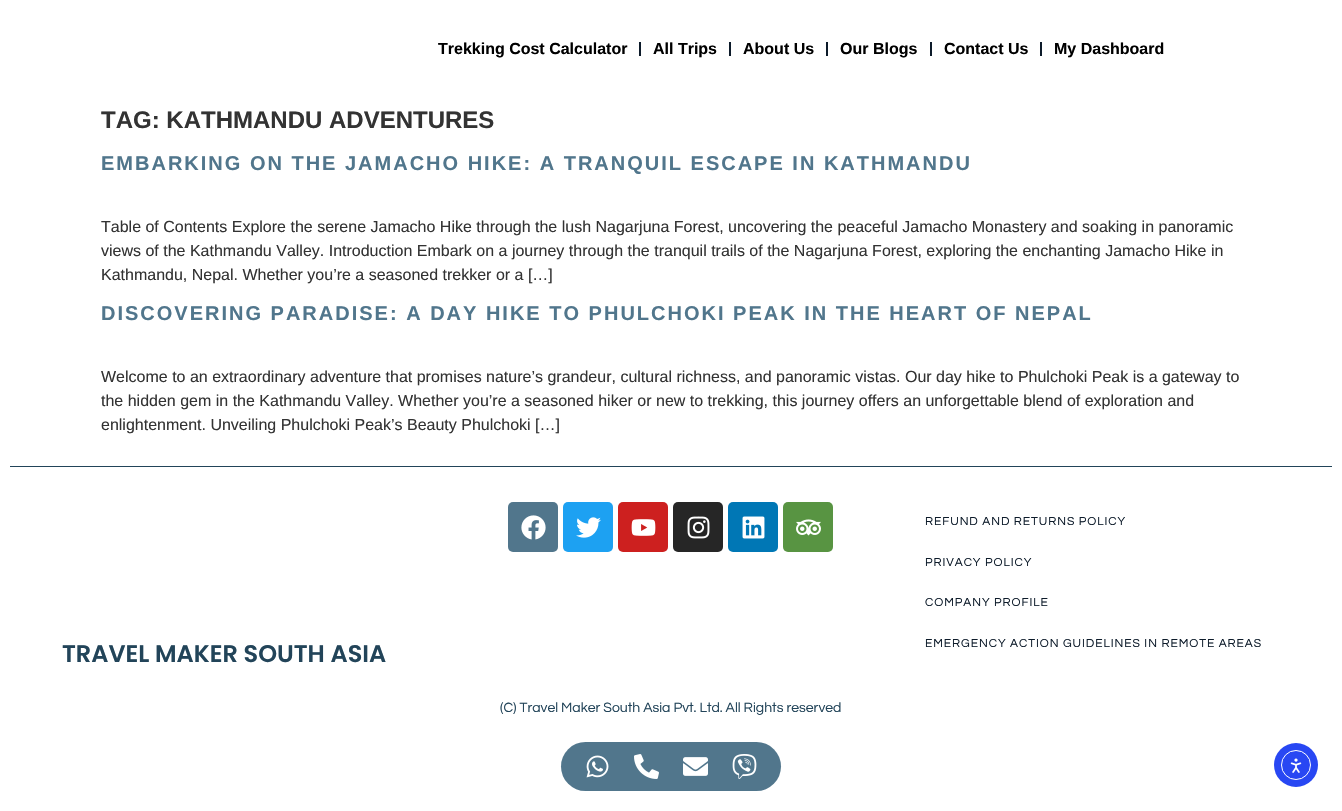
void draw(SkCanvas* canvas) {
	SkPaint fill;
	fill.setAntiAlias(true);
	auto makeFont = [&](const char* family, int weight, float size, bool italic = false) {
		SkFontStyle style(weight, SkFontStyle::kNormal_Width,
			italic ? SkFontStyle::kItalic_Slant : SkFontStyle::kUpright_Slant);
		SkFont result(fontMgr->matchFamilyStyle(family, style), size);
		result.setSubpixel(true);
		return result;
	};
	auto text = [&](const char* s, float x, float y, const SkFont& font) {
		canvas->drawString(s, x, y, font, fill);
	};
	auto spacedText = [&](const char* s, float x, float y, const SkFont& font, const SkPaint& ink, float letter, float word) {
		std::vector<SkGlyphID> glyphs(font.countText(s, strlen(s), SkTextEncoding::kUTF8));
		std::vector<float> xs(glyphs.size());
		font.textToGlyphs(s, strlen(s), SkTextEncoding::kUTF8, glyphs);
		font.getXPos(glyphs, xs, x);
		float extra = 0;
		for (size_t i = 0; i < glyphs.size(); i++) {
			xs[i] += extra;
			extra += letter + word * (glyphs[i] == font.unicharToGlyph(' '));
		}
		canvas->drawTextBlob(SkTextBlob::MakeFromPosHGlyphs(glyphs, xs, y, font), 0, 0, ink);
	};
	auto box = [&](float l, float t, float r, float b) {
		canvas->drawRect(SkRect::MakeLTRB(l, t, r, b), fill);
	};
	auto roundBox = [&](float l, float t, float r, float b, float radius) {
		canvas->drawRoundRect(SkRect::MakeLTRB(l, t, r, b), radius, radius, fill);
	};
	auto picture = [&](const char* path, float l, float t, float r, float b) {
		auto image = SkImages::DeferredFromEncodedData(SkData::MakeFromFileName(path));
		canvas->drawImageRect(image, SkRect::MakeLTRB(l, t, r, b), SkSamplingOptions());
	};
	canvas->clear(0xFFFFFFFF);
	fill.setColor(0xFF0D1B2A);
	box(639, 42, 641, 56);
	box(729, 42, 731, 56);
	box(826, 42, 828, 56);
	box(930, 42, 932, 56);
	box(1040, 42, 1042, 56);
	fill.setColor(0xFF224459);
	box(10, 466, 1332, 467);
	fill.setColor(0xFF51768C);
	roundBox(508, 502, 558, 552, 5);
	picture("image0.png", 521, 515, 546, 540);
	fill.setColor(0xFF1DA1F2);
	roundBox(563, 502, 613, 552, 5);
	picture("image1.png", 576, 517, 601, 538);
	fill.setColor(0xFFCD201F);
	roundBox(618, 502, 668, 552, 5);
	picture("image2.png", 631, 519, 656, 536);
	fill.setColor(0xFF262626);
	roundBox(673, 502, 723, 552, 5);
	picture("image3.png", 687, 516, 710, 539);
	fill.setColor(0xFF0077B5);
	roundBox(728, 502, 778, 552, 5);
	picture("image4.png", 742, 516, 765, 539);
	fill.setColor(0xFF589442);
	roundBox(783, 502, 833, 552, 5);
	picture("image5.png", 796, 519, 821, 536);
	fill.setColor(0xFF51768C);
	roundBox(561, 742, 781, 791, 24.5f);
	picture("image6.png", 586, 755, 609, 778);
	picture("image7.png", 634, 754, 659, 779);
	picture("image8.png", 683, 757, 708, 776);
	picture("image9.png", 732, 754, 757, 779);
	fill.setColor(0xFF2847F3);
	canvas->drawCircle(1296, 765, 22, fill);
	fill.setStyle(SkPaint::kStroke_Style);
	fill.setStrokeWidth(1);
	fill.setColor(0xFFFFFFFF);
	canvas->drawCircle(1296, 765, 14.5f, fill);
	picture("image10.png", 1290, 758, 1302, 773);
	auto font1 = makeFont("Liberation Sans", 700, 16);
	fill.setStyle(SkPaint::kFill_Style);
	fill.setColor(0xFF000000);
	text("Trekking Cost Calculator", 438, 54, font1);
	text("All Trips", 653, 54, font1);
	text("About Us", 743, 54, font1);
	text("Our Blogs", 840, 54, font1);
	text("Contact Us", 944, 54, font1);
	text("My Dashboard", 1054, 54, font1);
	auto font2 = makeFont("Liberation Sans", 700, 24);
	fill.setColor(0xFF333333);
	text("TAG: KATHMANDU ADVENTURES", 101, 128, font2);
	auto font3 = makeFont("Liberation Sans", 700, 20);
	fill.setColor(0xFF51768C);
	spacedText("EMBARKING ON THE JAMACHO HIKE: A TRANQUIL ESCAPE IN KATHMANDU", 101, 170, font3, fill, 2, 0);
	auto font4 = makeFont("Liberation Sans", 400, 16);
	fill.setColor(0xFF333333);
	text("Table of Contents Explore the serene Jamacho Hike through the lush Nagarjuna Forest, uncovering the peaceful Jamacho Monastery and soaking in panoramic", 101, 232, font4);
	text("views of the Kathmandu Valley. Introduction Embark on a journey through the tranquil trails of the Nagarjuna Forest, exploring the enchanting Jamacho Hike in", 101, 256, font4);
	text("Kathmandu, Nepal. Whether you’re a seasoned trekker or a […]", 101, 280, font4);
	fill.setColor(0xFF51768C);
	spacedText("DISCOVERING PARADISE: A DAY HIKE TO PHULCHOKI PEAK IN THE HEART OF NEPAL", 101, 320, font3, fill, 2, 0);
	fill.setColor(0xFF333333);
	text("Welcome to an extraordinary adventure that promises nature’s grandeur, cultural richness, and panoramic vistas. Our day hike to Phulchoki Peak is a gateway to", 101, 382, font4);
	text("the hidden gem in the Kathmandu Valley. Whether you’re a seasoned hiker or new to trekking, this journey offers an unforgettable blend of exploration and", 101, 406, font4);
	text("enlightenment. Unveiling Phulchoki Peak’s Beauty Phulchoki […]", 101, 430, font4);
	auto font5 = makeFont("Questrial", 400, 12);
	fill.setColor(0xFF0D1B2A);
	spacedText("REFUND AND RETURNS POLICY", 925, 525, font5, fill, 0.95f, 0);
	spacedText("PRIVACY POLICY", 925, 566, font5, fill, 0.95f, 0);
	spacedText("COMPANY PROFILE", 925, 606, font5, fill, 0.95f, 0);
	spacedText("EMERGENCY ACTION GUIDELINES IN REMOTE AREAS", 925, 647, font5, fill, 0.95f, 0);
	auto font6 = makeFont("Poppins", 600, 24);
	fill.setColor(0xFF224459);
	text("TRAVEL MAKER SOUTH ASIA", 62, 662, font6);
	auto font7 = makeFont("Questrial", 400, 14);
	text("(C) Travel Maker South Asia Pvt. Ltd. All Rights reserved", 500, 712, font7);
}
